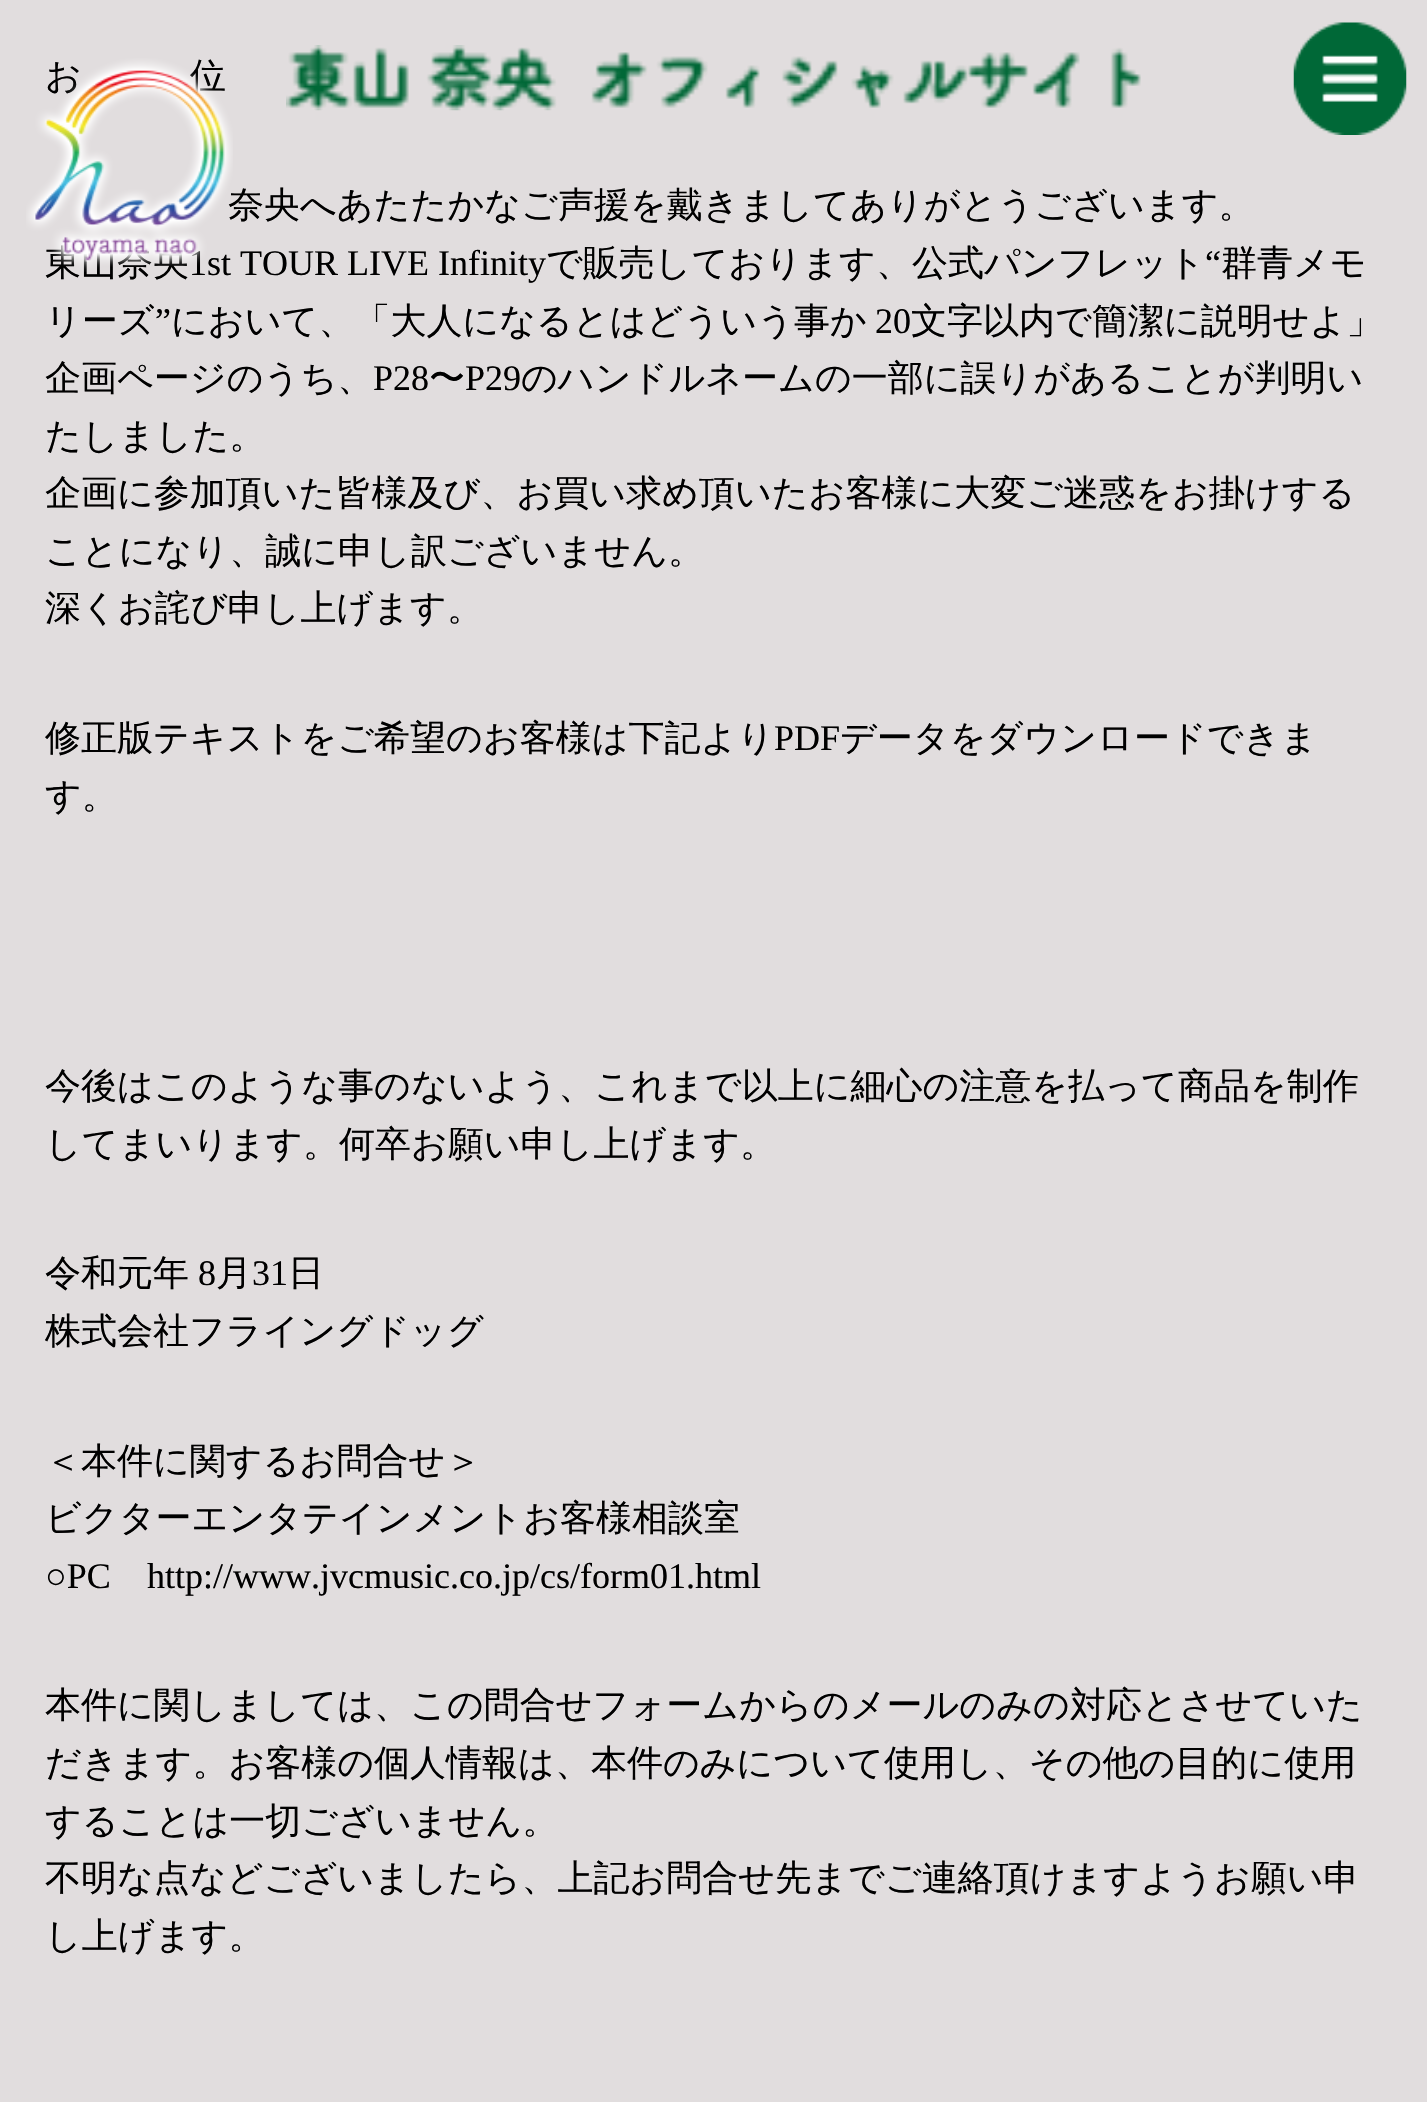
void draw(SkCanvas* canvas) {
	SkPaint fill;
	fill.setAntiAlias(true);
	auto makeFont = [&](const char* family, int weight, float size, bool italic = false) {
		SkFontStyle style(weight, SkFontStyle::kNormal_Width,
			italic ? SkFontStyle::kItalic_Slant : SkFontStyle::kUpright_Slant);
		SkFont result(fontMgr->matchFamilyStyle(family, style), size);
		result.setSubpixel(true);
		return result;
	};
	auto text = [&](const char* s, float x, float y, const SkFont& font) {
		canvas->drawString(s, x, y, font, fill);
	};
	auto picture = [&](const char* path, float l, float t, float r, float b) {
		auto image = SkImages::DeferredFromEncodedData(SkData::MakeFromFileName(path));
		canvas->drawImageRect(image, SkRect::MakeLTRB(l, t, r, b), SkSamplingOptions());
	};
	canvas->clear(0xFFE1DDDE);
	picture("image1.png", 286, 45, 1141, 111);
	picture("image2.png", 1293, 22, 1407, 135);
	auto font1 = makeFont("WenQuanYi Zen Hei", 500, 36);
	fill.setColor(0xFF000000);
	text("お", 45, 88, font1);
	text("位", 190, 88, font1);
	text("奈央へあたたかなご声援を戴きましてありがとうございます。", 228, 217, font1);
	text("東山奈央", 45, 275, font1);
	auto font2 = makeFont("Liberation Serif", 400, 36);
	text("1st TOUR LIVE Infinity", 189, 275, font2);
	picture("image0.png", 26, 58, 233, 272);
	text("で販売しております、公式パンフレット", 546, 275, font1);
	text("“", 1205, 275, font2);
	text("群青メモ", 1221, 275, font1);
	text("リーズ", 45, 333, font1);
	text("”", 155, 333, font2);
	text("において、「大人になるとはどういう事か", 171, 333, font1);
	text("20", 875, 333, font2);
	text("文字以内で簡潔に説明せよ」", 911, 333, font1);
	text("企画ページのうち、", 45, 390, font1);
	text("P28", 373, 390, font2);
	text("〜", 429, 390, font1);
	text("P29", 465, 390, font2);
	text("のハンドルネームの一部に誤りがあることが判明い", 521, 390, font1);
	text("たしました。", 45, 448, font1);
	text("企画に参加頂いた皆様及び、お買い求め頂いたお客様に大変ご迷惑をお掛けする", 45, 505, font1);
	text("ことになり、誠に申し訳ございません。", 45, 563, font1);
	text("深くお詫び申し上げます。", 45, 620, font1);
	text("修正版テキストをご希望のお客様は下記より", 45, 750, font1);
	text("PDF", 774, 750, font2);
	text("データをダウンロードできま", 840, 750, font1);
	text("す。", 45, 808, font1);
	text("今後はこのような事のないよう、これまで以上に細心の注意を払って商品を制作", 45, 1098, font1);
	text("してまいります。何卒お願い申し上げます。", 45, 1156, font1);
	text("令和元年", 45, 1285, font1);
	text("8", 198, 1285, font2);
	text("月", 216, 1285, font1);
	text("31", 252, 1285, font2);
	text("日", 288, 1285, font1);
	text("株式会社フライングドッグ", 45, 1343, font1);
	text("＜本件に関するお問合せ＞", 45, 1473, font1);
	text("ビクターエンタテインメントお客様相談室", 45, 1530, font1);
	text("○PC", 45, 1588, font2);
	text("http://www.jvcmusic.co.jp/cs/form01.html", 147, 1588, font2);
	text("本件に関しましては、この問合せフォームからのメールのみの対応とさせていた", 45, 1717, font1);
	text("だきます。お客様の個人情報は、本件のみについて使用し、その他の目的に使用", 45, 1775, font1);
	text("することは一切ございません。", 45, 1833, font1);
	text("不明な点などございましたら、上記お問合せ先までご連絡頂けますようお願い申", 45, 1890, font1);
	text("し上げます。", 45, 1948, font1);
}
